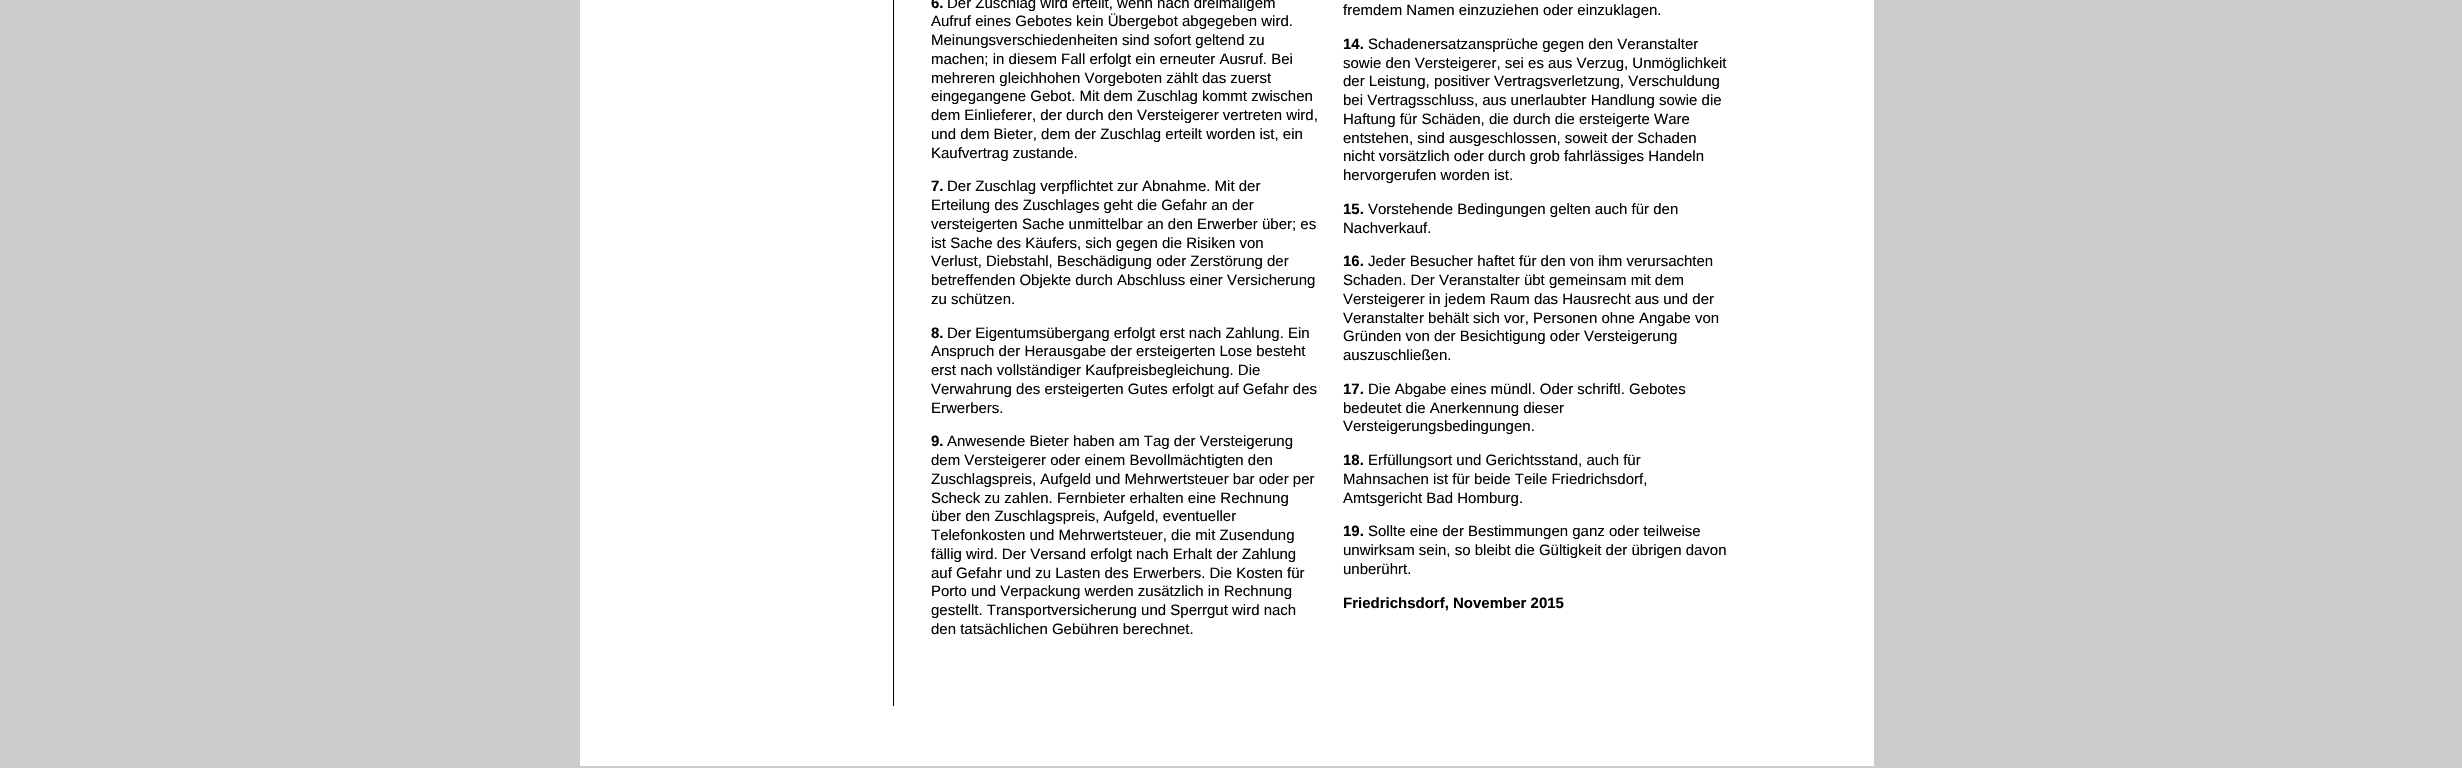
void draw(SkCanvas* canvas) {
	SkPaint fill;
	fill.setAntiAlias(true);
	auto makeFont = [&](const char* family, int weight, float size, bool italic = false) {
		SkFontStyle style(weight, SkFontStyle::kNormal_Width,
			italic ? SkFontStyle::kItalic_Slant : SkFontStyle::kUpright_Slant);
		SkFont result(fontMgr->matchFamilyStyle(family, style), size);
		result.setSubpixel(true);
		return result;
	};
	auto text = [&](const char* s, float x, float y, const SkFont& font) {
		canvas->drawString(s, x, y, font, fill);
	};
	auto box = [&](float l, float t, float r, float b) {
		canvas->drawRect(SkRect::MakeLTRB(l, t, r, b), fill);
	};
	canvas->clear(0xFFCCCCCC);
	fill.setColor(0xFFFFFFFF);
	box(580, 0, 1874, 766);
	fill.setColor(0xFF000000);
	box(893, 0, 894, 706);
	auto font1 = makeFont("Liberation Sans", 700, 15);
	text("6.", 931, 8, font1);
	auto font2 = makeFont("Liberation Sans", 400, 15);
	text("Der Zuschlag wird erteilt, wenn nach dreimaligem", 947, 8, font2);
	text("Aufruf eines Gebotes kein Übergebot abgegeben wird.", 931, 26, font2);
	text("Meinungsverschiedenheiten sind sofort geltend zu", 931, 45, font2);
	text("machen; in diesem Fall erfolgt ein erneuter Ausruf. Bei", 931, 64, font2);
	text("mehreren gleichhohen Vorgeboten zählt das zuerst", 931, 83, font2);
	text("eingegangene Gebot. Mit dem Zuschlag kommt zwischen", 931, 101, font2);
	text("dem Einlieferer, der durch den Versteigerer vertreten wird,", 931, 120, font2);
	text("und dem Bieter, dem der Zuschlag erteilt worden ist, ein", 931, 139, font2);
	text("Kaufvertrag zustande.", 931, 158, font2);
	text("7.", 931, 191, font1);
	text("Der Zuschlag verpflichtet zur Abnahme. Mit der", 947, 191, font2);
	text("Erteilung des Zuschlages geht die Gefahr an der", 931, 210, font2);
	text("versteigerten Sache unmittelbar an den Erwerber über; es", 931, 229, font2);
	text("ist Sache des Käufers, sich gegen die Risiken von", 931, 248, font2);
	text("Verlust, Diebstahl, Beschädigung oder Zerstörung der", 931, 266, font2);
	text("betreffenden Objekte durch Abschluss einer Versicherung", 931, 285, font2);
	text("zu schützen.", 931, 304, font2);
	text("8.", 931, 338, font1);
	text("Der Eigentumsübergang erfolgt erst nach Zahlung. Ein", 947, 338, font2);
	text("Anspruch der Herausgabe der ersteigerten Lose besteht", 931, 356, font2);
	text("erst nach vollständiger Kaufpreisbegleichung. Die", 931, 375, font2);
	text("Verwahrung des ersteigerten Gutes erfolgt auf Gefahr des", 931, 394, font2);
	text("Erwerbers.", 931, 413, font2);
	text("9.", 931, 446, font1);
	text("Anwesende Bieter haben am Tag der Versteigerung", 947, 446, font2);
	text("dem Versteigerer oder einem Bevollmächtigten den", 931, 465, font2);
	text("Zuschlagspreis, Aufgeld und Mehrwertsteuer bar oder per", 931, 484, font2);
	text("Scheck zu zahlen. Fernbieter erhalten eine Rechnung", 931, 503, font2);
	text("über den Zuschlagspreis, Aufgeld, eventueller", 931, 521, font2);
	text("Telefonkosten und Mehrwertsteuer, die mit Zusendung", 931, 540, font2);
	text("fällig wird. Der Versand erfolgt nach Erhalt der Zahlung", 931, 559, font2);
	text("auf Gefahr und zu Lasten des Erwerbers. Die Kosten für", 931, 578, font2);
	text("Porto und Verpackung werden zusätzlich in Rechnung", 931, 596, font2);
	text("gestellt. Transportversicherung und Sperrgut wird nach", 931, 615, font2);
	text("den tatsächlichen Gebühren berechnet.", 931, 634, font2);
	text("fremdem Namen einzuziehen oder einzuklagen.", 1343, 15, font2);
	text("14.", 1343, 49, font1);
	text("Schadenersatzansprüche gegen den Veranstalter", 1368, 49, font2);
	text("sowie den Versteigerer, sei es aus Verzug, Unmöglichkeit", 1343, 68, font2);
	text("der Leistung, positiver Vertragsverletzung, Verschuldung", 1343, 86, font2);
	text("bei Vertragsschluss, aus unerlaubter Handlung sowie die", 1343, 105, font2);
	text("Haftung für Schäden, die durch die ersteigerte Ware", 1343, 124, font2);
	text("entstehen, sind ausgeschlossen, soweit der Schaden", 1343, 143, font2);
	text("nicht vorsätzlich oder durch grob fahrlässiges Handeln", 1343, 161, font2);
	text("hervorgerufen worden ist.", 1343, 180, font2);
	text("15.", 1343, 214, font1);
	text("Vorstehende Bedingungen gelten auch für den", 1368, 214, font2);
	text("Nachverkauf.", 1343, 233, font2);
	text("16.", 1343, 266, font1);
	text("Jeder Besucher haftet für den von ihm verursachten", 1368, 266, font2);
	text("Schaden. Der Veranstalter übt gemeinsam mit dem", 1343, 285, font2);
	text("Versteigerer in jedem Raum das Hausrecht aus und der", 1343, 304, font2);
	text("Veranstalter behält sich vor, Personen ohne Angabe von", 1343, 323, font2);
	text("Gründen von der Besichtigung oder Versteigerung", 1343, 341, font2);
	text("auszuschließen.", 1343, 360, font2);
	text("17.", 1343, 394, font1);
	text("Die Abgabe eines mündl. Oder schriftl. Gebotes", 1368, 394, font2);
	text("bedeutet die Anerkennung dieser", 1343, 413, font2);
	text("Versteigerungsbedingungen.", 1343, 431, font2);
	text("18.", 1343, 465, font1);
	text("Erfüllungsort und Gerichtsstand, auch für", 1368, 465, font2);
	text("Mahnsachen ist für beide Teile Friedrichsdorf,", 1343, 484, font2);
	text("Amtsgericht Bad Homburg.", 1343, 503, font2);
	text("19.", 1343, 536, font1);
	text("Sollte eine der Bestimmungen ganz oder teilweise", 1368, 536, font2);
	text("unwirksam sein, so bleibt die Gültigkeit der übrigen davon", 1343, 555, font2);
	text("unberührt.", 1343, 574, font2);
	text("Friedrichsdorf, November 2015", 1343, 608, font1);
}
